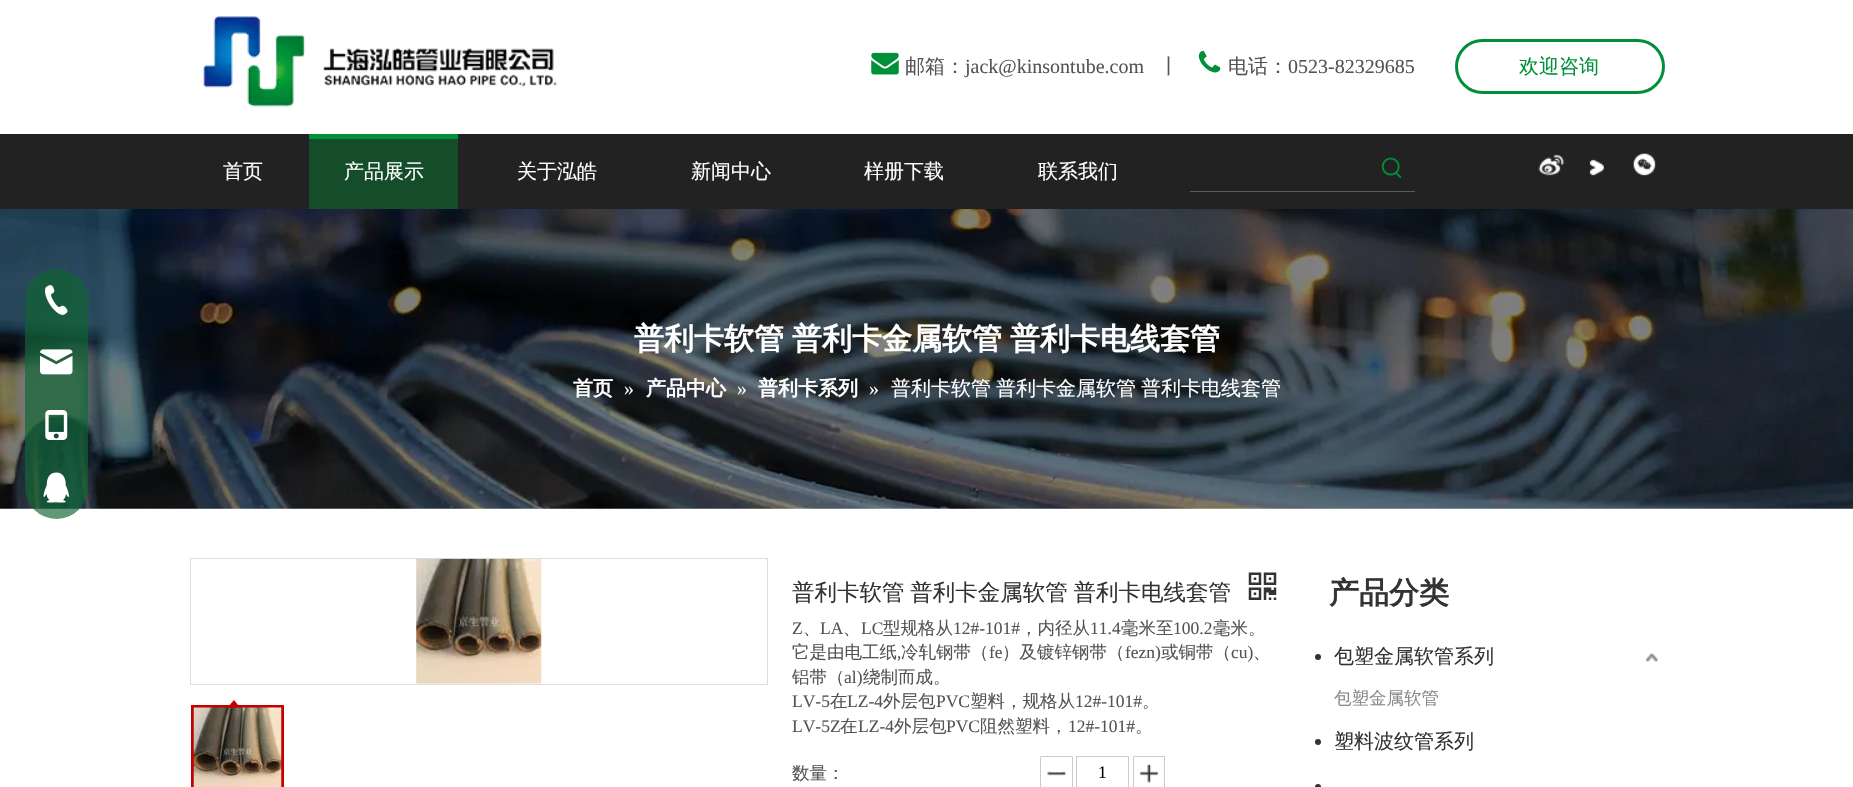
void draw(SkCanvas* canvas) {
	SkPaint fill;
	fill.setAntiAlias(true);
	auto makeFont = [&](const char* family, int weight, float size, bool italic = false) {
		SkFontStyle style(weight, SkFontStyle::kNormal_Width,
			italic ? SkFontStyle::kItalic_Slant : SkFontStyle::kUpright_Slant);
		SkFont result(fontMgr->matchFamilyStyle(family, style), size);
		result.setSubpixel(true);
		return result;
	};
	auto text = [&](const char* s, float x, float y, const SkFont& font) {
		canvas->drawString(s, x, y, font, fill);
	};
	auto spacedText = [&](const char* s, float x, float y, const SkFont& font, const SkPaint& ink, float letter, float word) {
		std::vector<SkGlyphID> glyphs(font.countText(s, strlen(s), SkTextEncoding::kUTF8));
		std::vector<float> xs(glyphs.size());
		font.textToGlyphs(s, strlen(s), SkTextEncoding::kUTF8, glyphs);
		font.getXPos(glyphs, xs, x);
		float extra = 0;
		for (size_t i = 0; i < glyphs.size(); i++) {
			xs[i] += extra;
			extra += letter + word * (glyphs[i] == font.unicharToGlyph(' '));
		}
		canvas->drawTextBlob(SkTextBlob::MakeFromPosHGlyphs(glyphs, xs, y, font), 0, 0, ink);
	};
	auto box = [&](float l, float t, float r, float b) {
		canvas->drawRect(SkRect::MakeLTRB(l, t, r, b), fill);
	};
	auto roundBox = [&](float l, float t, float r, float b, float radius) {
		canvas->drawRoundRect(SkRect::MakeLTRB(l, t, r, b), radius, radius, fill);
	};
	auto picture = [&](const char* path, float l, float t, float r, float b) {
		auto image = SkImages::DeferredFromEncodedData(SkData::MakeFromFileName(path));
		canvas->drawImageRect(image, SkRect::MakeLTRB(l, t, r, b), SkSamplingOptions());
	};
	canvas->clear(0xFFFFFFFF);
	picture("image0.png", 203, 16, 557, 107);
	picture("image1.png", 871, 52, 899, 75);
	picture("image2.png", 1198, 50, 1221, 73);
	fill.setStyle(SkPaint::kStroke_Style);
	fill.setStrokeWidth(3);
	fill.setColor(0xFF009038);
	canvas->drawRoundRect(SkRect::MakeLTRB(1456.5f, 40.5f, 1663.5f, 92.5f), 26, 26, fill);
	fill.setStyle(SkPaint::kFill_Style);
	fill.setColor(0xFF222222);
	box(0, 134, 1853, 209);
	fill.setColor(0xFF154C2A);
	box(309, 139, 458, 209);
	fill.setColor(0xFF009038);
	box(309, 134, 458, 139);
	fill.setColor(0xFF5A5A5A);
	box(1190, 191, 1415, 192);
	picture("image3.png", 1381, 157, 1402, 179);
	picture("image4.png", 1538, 154, 1564, 176);
	picture("image5.png", 1589, 159, 1604, 176);
	picture("image6.png", 1633, 153, 1656, 176);
	picture("image11.png", 0, 209, 1853, 509);
	fill.setColor(0xA80E6430);
	roundBox(25, 269, 88, 519, 31.5f);
	picture("image7.png", 45, 285, 68, 315);
	picture("image8.png", 40, 349, 73, 375);
	picture("image9.png", 45, 410, 68, 440);
	picture("image10.png", 43, 472, 69, 503);
	fill.setStyle(SkPaint::kStroke_Style);
	fill.setStrokeWidth(1);
	fill.setColor(0xFFDDDDDD);
	canvas->drawRect(SkRect::MakeLTRB(190.5f, 558.5f, 767.5f, 684.5f), fill);
	picture("image12.png", 416, 558, 542, 684);
	fill.setStrokeWidth(3);
	fill.setColor(0xFFC40000);
	canvas->drawRect(SkRect::MakeLTRB(192.5f, 706.5f, 282.5f, 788.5f), fill);
	picture("image13.png", 193, 707, 282, 787);
	fill.setStyle(SkPaint::kFill_Style);
	canvas->drawPath(SkPathBuilder().moveTo(240, 707.5f).lineTo(227.5f, 707.5f).lineTo(234, 700).close().detach(), fill);
	picture("image14.png", 1248, 572, 1277, 600);
	picture("image15.png", 1047, 771, 1067, 776);
	fill.setStyle(SkPaint::kStroke_Style);
	fill.setStrokeWidth(1);
	fill.setColor(0xFFCCCCCC);
	canvas->drawRoundRect(SkRect::MakeLTRB(1040.5f, 756.5f, 1072.5f, 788.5f), 0.5f, 0.5f, fill);
	canvas->drawRect(SkRect::MakeLTRB(1076.5f, 756.5f, 1128.5f, 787.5f), fill);
	picture("image16.png", 1139, 764, 1159, 783);
	canvas->drawRoundRect(SkRect::MakeLTRB(1133.5f, 756.5f, 1164.5f, 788.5f), 0.5f, 0.5f, fill);
	fill.setStyle(SkPaint::kFill_Style);
	fill.setColor(0xFF333333);
	canvas->drawCircle(1318, 657, 3, fill);
	picture("image17.png", 1646, 653, 1658, 662);
	canvas->drawCircle(1318, 742, 3, fill);
	canvas->drawCircle(1318, 787, 3, fill);
	auto font1 = makeFont("WenQuanYi Zen Hei", 500, 20);
	fill.setColor(0xFF545454);
	text("邮箱：", 905, 73, font1);
	auto font2 = makeFont("Liberation Serif", 400, 20);
	text("jack@kinsontube.com", 965, 73, font2);
	text("丨", 1159, 73, font1);
	text("电话：", 1228, 73, font1);
	text("0523-82329685", 1288, 73, font2);
	fill.setColor(0xFF009038);
	text("欢迎咨询", 1519, 73, font1);
	fill.setColor(0xFFFFFFFF);
	text("首页", 223, 178, font1);
	text("产品展示", 344, 178, font1);
	text("关于泓皓", 517, 178, font1);
	text("新闻中心", 691, 178, font1);
	text("样册下载", 864, 178, font1);
	text("联系我们", 1038, 178, font1);
	auto font3 = makeFont("WenQuanYi Zen Hei", 700, 30);
	spacedText("普利卡软管 普利卡金属软管 普利卡电线套管", 634, 349, font3, fill, 0, -1);
	auto font4 = makeFont("WenQuanYi Zen Hei", 700, 20);
	text("首页", 573, 395, font4);
	text("»", 624, 395, font2);
	text("产品中心", 646, 395, font4);
	text("»", 737, 395, font2);
	text("普利卡系列", 758, 395, font4);
	text("»", 869, 395, font2);
	spacedText("普利卡软管 普利卡金属软管 普利卡电线套管", 891, 395, font1, fill, 0, -1);
	auto font5 = makeFont("WenQuanYi Zen Hei", 500, 22.5f);
	fill.setColor(0xFF333333);
	spacedText("普利卡软管 普利卡金属软管 普利卡电线套管", 792, 600, font5, fill, 0, -1);
	auto font6 = makeFont("Liberation Serif", 400, 17.5f);
	fill.setColor(0xFF545454);
	text("Z", 792, 634, font6);
	auto font7 = makeFont("WenQuanYi Zen Hei", 500, 17.5f);
	text("、", 803, 634, font7);
	text("LA", 820, 634, font6);
	text("、", 843, 634, font7);
	text("LC", 861, 634, font6);
	text("型规格从", 883, 634, font7);
	text("12#-101#", 953, 634, font6);
	text("，内径从", 1020, 634, font7);
	text("11.4", 1090, 634, font6);
	text("毫米至", 1121, 634, font7);
	text("100.2", 1173, 634, font6);
	text("毫米。", 1213, 634, font7);
	text("它是由电工纸", 792, 658, font7);
	text(",", 897, 658, font6);
	text("冷轧钢带（", 901, 658, font7);
	text("fe", 989, 658, font6);
	text("）及镀锌钢带（", 1002, 658, font7);
	text("fezn)", 1125, 658, font6);
	text("或铜带（", 1161, 658, font7);
	text("cu)", 1231, 658, font6);
	text("、", 1253, 658, font7);
	text("铝带（", 792, 683, font7);
	text("al)", 844, 683, font6);
	text("绕制而成。", 863, 683, font7);
	text("LV-5", 792, 707, font6);
	text("在", 830, 707, font7);
	text("LZ-4", 847, 707, font6);
	text("外层包", 883, 707, font7);
	text("PVC", 936, 707, font6);
	text("塑料，规格从", 970, 707, font7);
	text("12#-101#", 1075, 707, font6);
	text("。", 1142, 707, font7);
	text("LV-5Z", 792, 732, font6);
	text("在", 840, 732, font7);
	text("LZ-4", 858, 732, font6);
	text("外层包", 894, 732, font7);
	text("PVC", 946, 732, font6);
	text("阻然塑料，", 980, 732, font7);
	text("12#-101#", 1068, 732, font6);
	text("。", 1135, 732, font7);
	text("数量：", 792, 779, font7);
	fill.setColor(0xFF000000);
	text("1", 1098, 778, font6);
	fill.setColor(0xFF333333);
	text("产品分类", 1329, 603, font3);
	text("包塑金属软管系列", 1334, 663, font1);
	fill.setColor(0xFF8A8A8A);
	text("包塑金属软管", 1334, 704, font7);
	fill.setColor(0xFF333333);
	text("塑料波纹管系列", 1334, 748, font1);
}
